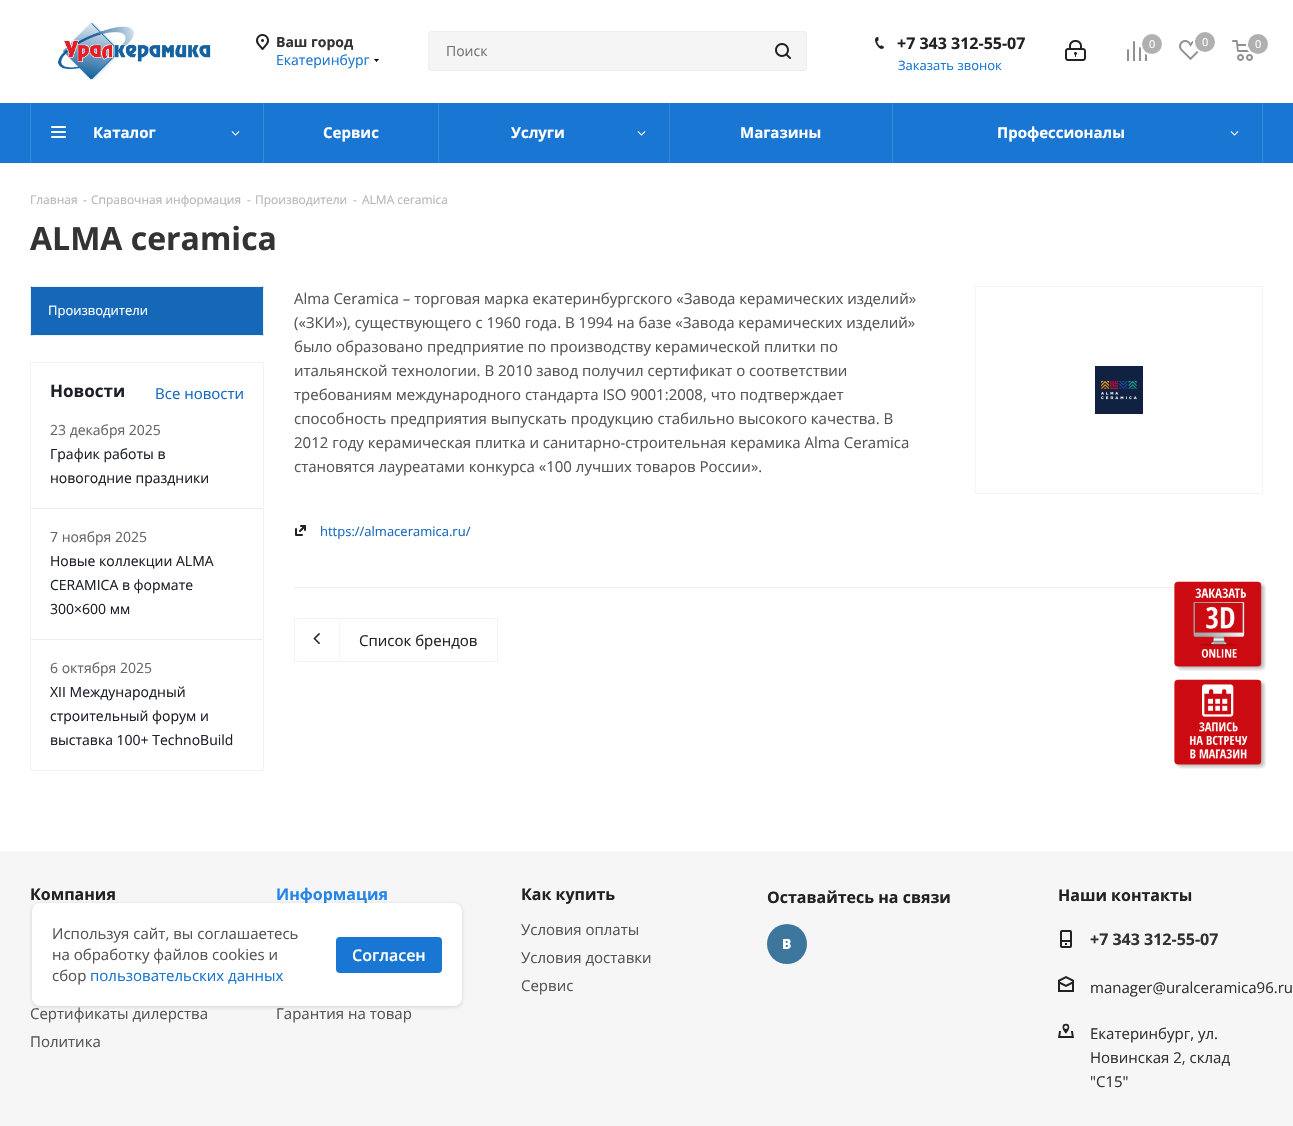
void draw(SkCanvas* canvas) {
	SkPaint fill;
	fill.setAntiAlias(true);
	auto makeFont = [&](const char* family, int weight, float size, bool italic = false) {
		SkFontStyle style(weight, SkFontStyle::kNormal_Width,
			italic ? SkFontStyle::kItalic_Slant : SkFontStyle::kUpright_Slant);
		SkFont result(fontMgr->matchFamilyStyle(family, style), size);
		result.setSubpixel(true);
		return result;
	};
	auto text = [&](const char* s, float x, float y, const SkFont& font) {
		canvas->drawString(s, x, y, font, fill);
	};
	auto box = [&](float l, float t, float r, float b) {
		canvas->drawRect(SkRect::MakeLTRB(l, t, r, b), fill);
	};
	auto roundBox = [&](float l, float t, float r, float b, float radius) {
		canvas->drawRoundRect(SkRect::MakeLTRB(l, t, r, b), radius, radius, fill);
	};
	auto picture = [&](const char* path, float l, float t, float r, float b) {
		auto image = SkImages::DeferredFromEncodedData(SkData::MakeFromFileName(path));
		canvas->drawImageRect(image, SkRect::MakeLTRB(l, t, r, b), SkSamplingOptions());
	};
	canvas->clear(0xFFFFFFFF);
	picture("image0.png", 58, 22, 211, 80);
	picture("image1.png", 256, 34, 269, 50);
	picture("image2.png", 374, 59, 379, 62);
	fill.setColor(0xFFF5F5F5);
	canvas->drawRoundRect(SkRect::MakeLTRB(428.5f, 31.5f, 806.5f, 70.5f), 2.5f, 2.5f, fill);
	fill.setStyle(SkPaint::kStroke_Style);
	fill.setStrokeWidth(1);
	fill.setColor(0xFFEEEEEE);
	canvas->drawRoundRect(SkRect::MakeLTRB(428.5f, 31.5f, 806.5f, 70.5f), 2.5f, 2.5f, fill);
	picture("image3.png", 775, 43, 791, 59);
	picture("image4.png", 875, 37, 884, 49);
	picture("image5.png", 1065, 40, 1086, 61);
	picture("image6.png", 1127, 41, 1147, 61);
	fill.setStrokeWidth(2);
	fill.setColor(0xFFFFFFFF);
	canvas->drawCircle(1152, 44, 11, fill);
	fill.setStyle(SkPaint::kFill_Style);
	fill.setColor(0xFFB0B0B0);
	canvas->drawCircle(1152, 44, 10, fill);
	picture("image7.png", 1179, 40, 1201, 60);
	fill.setStyle(SkPaint::kStroke_Style);
	fill.setColor(0xFFFFFFFF);
	canvas->drawCircle(1205, 42, 11, fill);
	fill.setStyle(SkPaint::kFill_Style);
	fill.setColor(0xFFB0B0B0);
	canvas->drawCircle(1205, 42, 10, fill);
	picture("image8.png", 1232, 40, 1253, 61);
	fill.setStyle(SkPaint::kStroke_Style);
	fill.setColor(0xFFFFFFFF);
	canvas->drawCircle(1258, 44, 11, fill);
	fill.setStyle(SkPaint::kFill_Style);
	fill.setColor(0xFFB0B0B0);
	canvas->drawCircle(1258, 44, 10, fill);
	fill.setColor(0xFF1976D2);
	box(0, 103, 1293, 163);
	fill.setColor(0xFF3C8BD9);
	box(30, 103, 31, 163);
	box(263, 103, 264, 163);
	picture("image9.png", 51, 126, 66, 138);
	picture("image10.png", 231, 131, 240, 136);
	box(438, 103, 439, 163);
	box(669, 103, 670, 163);
	picture("image10.png", 637, 131, 646, 136);
	box(892, 103, 893, 163);
	box(1262, 103, 1263, 163);
	picture("image10.png", 1230, 131, 1239, 136);
	fill.setColor(0xFF1567B8);
	roundBox(30, 286, 264, 336, 3);
	fill.setColor(0xFFF2F2F2);
	canvas->drawPath(SkPathBuilder(SkPathFillType::kEvenOdd).moveTo(33, 286).cubicTo(31, 286, 30, 287, 30, 289).lineTo(30, 333).cubicTo(30, 335, 31, 336, 33, 336).lineTo(261, 336).cubicTo(263, 336, 264, 335, 264, 333).lineTo(264, 289).cubicTo(264, 287, 263, 286, 261, 286).close().moveTo(31, 287).lineTo(31, 335).lineTo(263, 335).lineTo(263, 287).close().detach(), fill);
	fill.setStyle(SkPaint::kStroke_Style);
	fill.setStrokeWidth(1);
	canvas->drawRoundRect(SkRect::MakeLTRB(30.5f, 362.5f, 263.5f, 770.5f), 1.5f, 1.5f, fill);
	fill.setStyle(SkPaint::kFill_Style);
	fill.setColor(0xFFEBEEF1);
	box(31, 508, 263, 509);
	box(31, 639, 263, 640);
	picture("image11.png", 295, 525, 306, 536);
	fill.setStyle(SkPaint::kStroke_Style);
	fill.setColor(0xFFF5F5F5);
	canvas->drawRect(SkRect::MakeLTRB(975.5f, 286.5f, 1262.5f, 493.5f), fill);
	picture("image12.png", 1095, 366, 1143, 414);
	fill.setStyle(SkPaint::kFill_Style);
	fill.setColor(0xFFF0F0F0);
	box(294, 587, 1263, 588);
	fill.setStyle(SkPaint::kStroke_Style);
	fill.setColor(0xFFF2F2F2);
	canvas->drawRoundRect(SkRect::MakeLTRB(294.5f, 618.5f, 497.5f, 661.5f), 2.5f, 2.5f, fill);
	picture("image13.png", 313, 633, 320, 645);
	fill.setStyle(SkPaint::kFill_Style);
	fill.setColor(0xFFF5F5F5);
	box(339, 619, 340, 661);
	picture("image14.png", 1174, 581, 1266, 671);
	picture("image15.png", 1174, 679, 1266, 769);
	fill.setColor(0xFFF6F6F7);
	box(0, 851, 1293, 1126);
	picture("image16.png", 767, 924, 807, 964);
	picture("image17.png", 1060, 930, 1072, 948);
	picture("image18.png", 1058, 976, 1074, 992);
	picture("image19.png", 1058, 1023, 1074, 1038);
	fill.setColor(0x1A0C0C0D);
	fill.setMaskFilter(SkMaskFilter::MakeBlur(kNormal_SkBlurStyle, 2));
	canvas->drawRoundRect(SkRect::MakeLTRB(32, 904, 462, 1007), 8, 8, fill);
	fill.setMaskFilter(nullptr);
	fill.setColor(0x0D0C0C0D);
	fill.setMaskFilter(SkMaskFilter::MakeBlur(kNormal_SkBlurStyle, 2));
	canvas->drawRoundRect(SkRect::MakeLTRB(32, 904, 462, 1007), 8, 8, fill);
	fill.setMaskFilter(nullptr);
	auto font1 = makeFont("Open Sans", 700, 14);
	fill.setColor(0xFF333333);
	text("Ваш город", 276, 47, font1);
	auto font2 = makeFont("Open Sans", 400, 14);
	fill.setColor(0xFF1976D2);
	text("Екатеринбург", 276, 65, font2);
	fill.setColor(0xFF757575);
	text("Поиск", 446, 56, font2);
	auto font3 = makeFont("Open Sans", 700, 16);
	fill.setColor(0xFF222222);
	text("+7 343 312-55-07", 897, 49, font3);
	auto font4 = makeFont("Open Sans", 400, 13);
	fill.setColor(0xFF1976D2);
	text("Заказать звонок", 898, 70, font4);
	auto font5 = makeFont("Open Sans", 400, 11);
	fill.setColor(0xFFFFFFFF);
	text("0", 1149, 48, font5);
	text("0", 1202, 46, font5);
	text("0", 1255, 48, font5);
	auto font6 = makeFont("Open Sans", 700, 15);
	text("Каталог", 93, 138, font6);
	text("Сервис", 323, 138, font6);
	text("Услуги", 511, 138, font6);
	text("Магазины", 740, 138, font6);
	text("Профессионалы", 997, 138, font6);
	auto font7 = makeFont("Open Sans", 400, 12);
	fill.setColor(0xFFB6B5B5);
	text("Главная", 30, 204, font7);
	text("-", 83, 204, font7);
	text("Справочная информация", 91, 204, font7);
	text("-", 247, 204, font7);
	text("Производители", 255, 204, font7);
	text("-", 353, 204, font7);
	text("ALMA ceramica", 362, 204, font7);
	auto font8 = makeFont("Open Sans", 700, 32);
	fill.setColor(0xFF333333);
	text("ALMA ceramica", 30, 250, font8);
	fill.setColor(0xFFFFFFFF);
	text("Производители", 48, 315, font4);
	auto font9 = makeFont("Open Sans", 700, 17);
	fill.setColor(0xFF1D2029);
	text("Новости", 50, 397, font9);
	auto font10 = makeFont("Open Sans", 400, 15);
	fill.setColor(0xFF1569BC);
	text("Все новости", 155, 399, font10);
	fill.setColor(0xFF666666);
	text("23 декабря 2025", 50, 435, font2);
	fill.setColor(0xFF1D2029);
	text("График работы в", 50, 459, font2);
	text("новогодние праздники", 50, 483, font2);
	fill.setColor(0xFF666666);
	text("7 ноября 2025", 50, 542, font2);
	fill.setColor(0xFF1D2029);
	text("Новые коллекции ALMA", 50, 566, font2);
	text("CERAMICA в формате", 50, 590, font2);
	text("300×600 мм", 50, 614, font2);
	fill.setColor(0xFF666666);
	text("6 октября 2025", 50, 673, font2);
	fill.setColor(0xFF1D2029);
	text("XII Международный", 50, 697, font2);
	text("строительный форум и", 50, 721, font2);
	text("выставка 100+ TechnoBuild", 50, 745, font2);
	fill.setColor(0xFF555555);
	text("Alma Ceramica – торговая марка екатеринбургского «Завода керамических изделий»", 294, 304, font10);
	text("(«ЗКИ»), существующего с 1960 года. В 1994 на базе «Завода керамических изделий»", 294, 328, font10);
	text("было образовано предприятие по производству керамической плитки по", 294, 352, font10);
	text("итальянской технологии. В 2010 завод получил сертификат о соответствии", 294, 376, font10);
	text("требованиям международного стандарта ISO 9001:2008, что подтверждает", 294, 400, font10);
	text("способность предприятия выпускать продукцию стабильно высокого качества. В", 294, 424, font10);
	text("2012 году керамическая плитка и санитарно-строительная керамика Alma Ceramica", 294, 448, font10);
	text("становятся лауреатами конкурса «100 лучших товаров России».", 294, 472, font10);
	fill.setColor(0xFF1569BC);
	text("https://almaceramica.ru/", 320, 536, font4);
	fill.setColor(0xFF222222);
	text("Список брендов", 359, 646, font10);
	text("Компания", 30, 900, font3);
	fill.setColor(0xFF555555);
	text("Сертификаты дилерства", 30, 1019, font10);
	text("Политика", 30, 1047, font10);
	fill.setColor(0xFF2585E5);
	text("Информация", 276, 900, font3);
	fill.setColor(0xFF555555);
	text("Гарантия на товар", 276, 1019, font10);
	fill.setColor(0xFF222222);
	text("Как купить", 521, 900, font3);
	fill.setColor(0xFF555555);
	text("Условия оплаты", 521, 935, font10);
	text("Условия доставки", 521, 963, font10);
	text("Сервис", 521, 991, font10);
	fill.setColor(0xFF222222);
	text("Оставайтесь на связи", 767, 903, font3);
	text("Наши контакты", 1058, 901, font3);
	fill.setColor(0xFF333333);
	text("+7 343 312-55-07", 1090, 945, font3);
	text("manager@uralceramica96.ru", 1090, 993, font10);
	text("Екатеринбург, ул.", 1090, 1039, font10);
	text("Новинская 2, склад", 1090, 1063, font10);
	text("\"С15\"", 1090, 1087, font10);
	fill.setColor(0xFFFFFFFF);
	roundBox(32, 903, 462, 1006, 8);
	fill.setColor(0xFF555555);
	text("Используя сайт, вы соглашаетесь", 52, 939, font10);
	text("на обработку файлов cookies и", 52, 960, font10);
	text("сбор", 52, 981, font10);
	fill.setColor(0xFF1976D2);
	text("пользовательских данных", 90, 981, font10);
	roundBox(336, 937, 442, 973, 4);
	auto font11 = makeFont("Open Sans", 600, 16);
	fill.setColor(0xFFFFFFFF);
	text("Согласен", 352, 961, font11);
}
